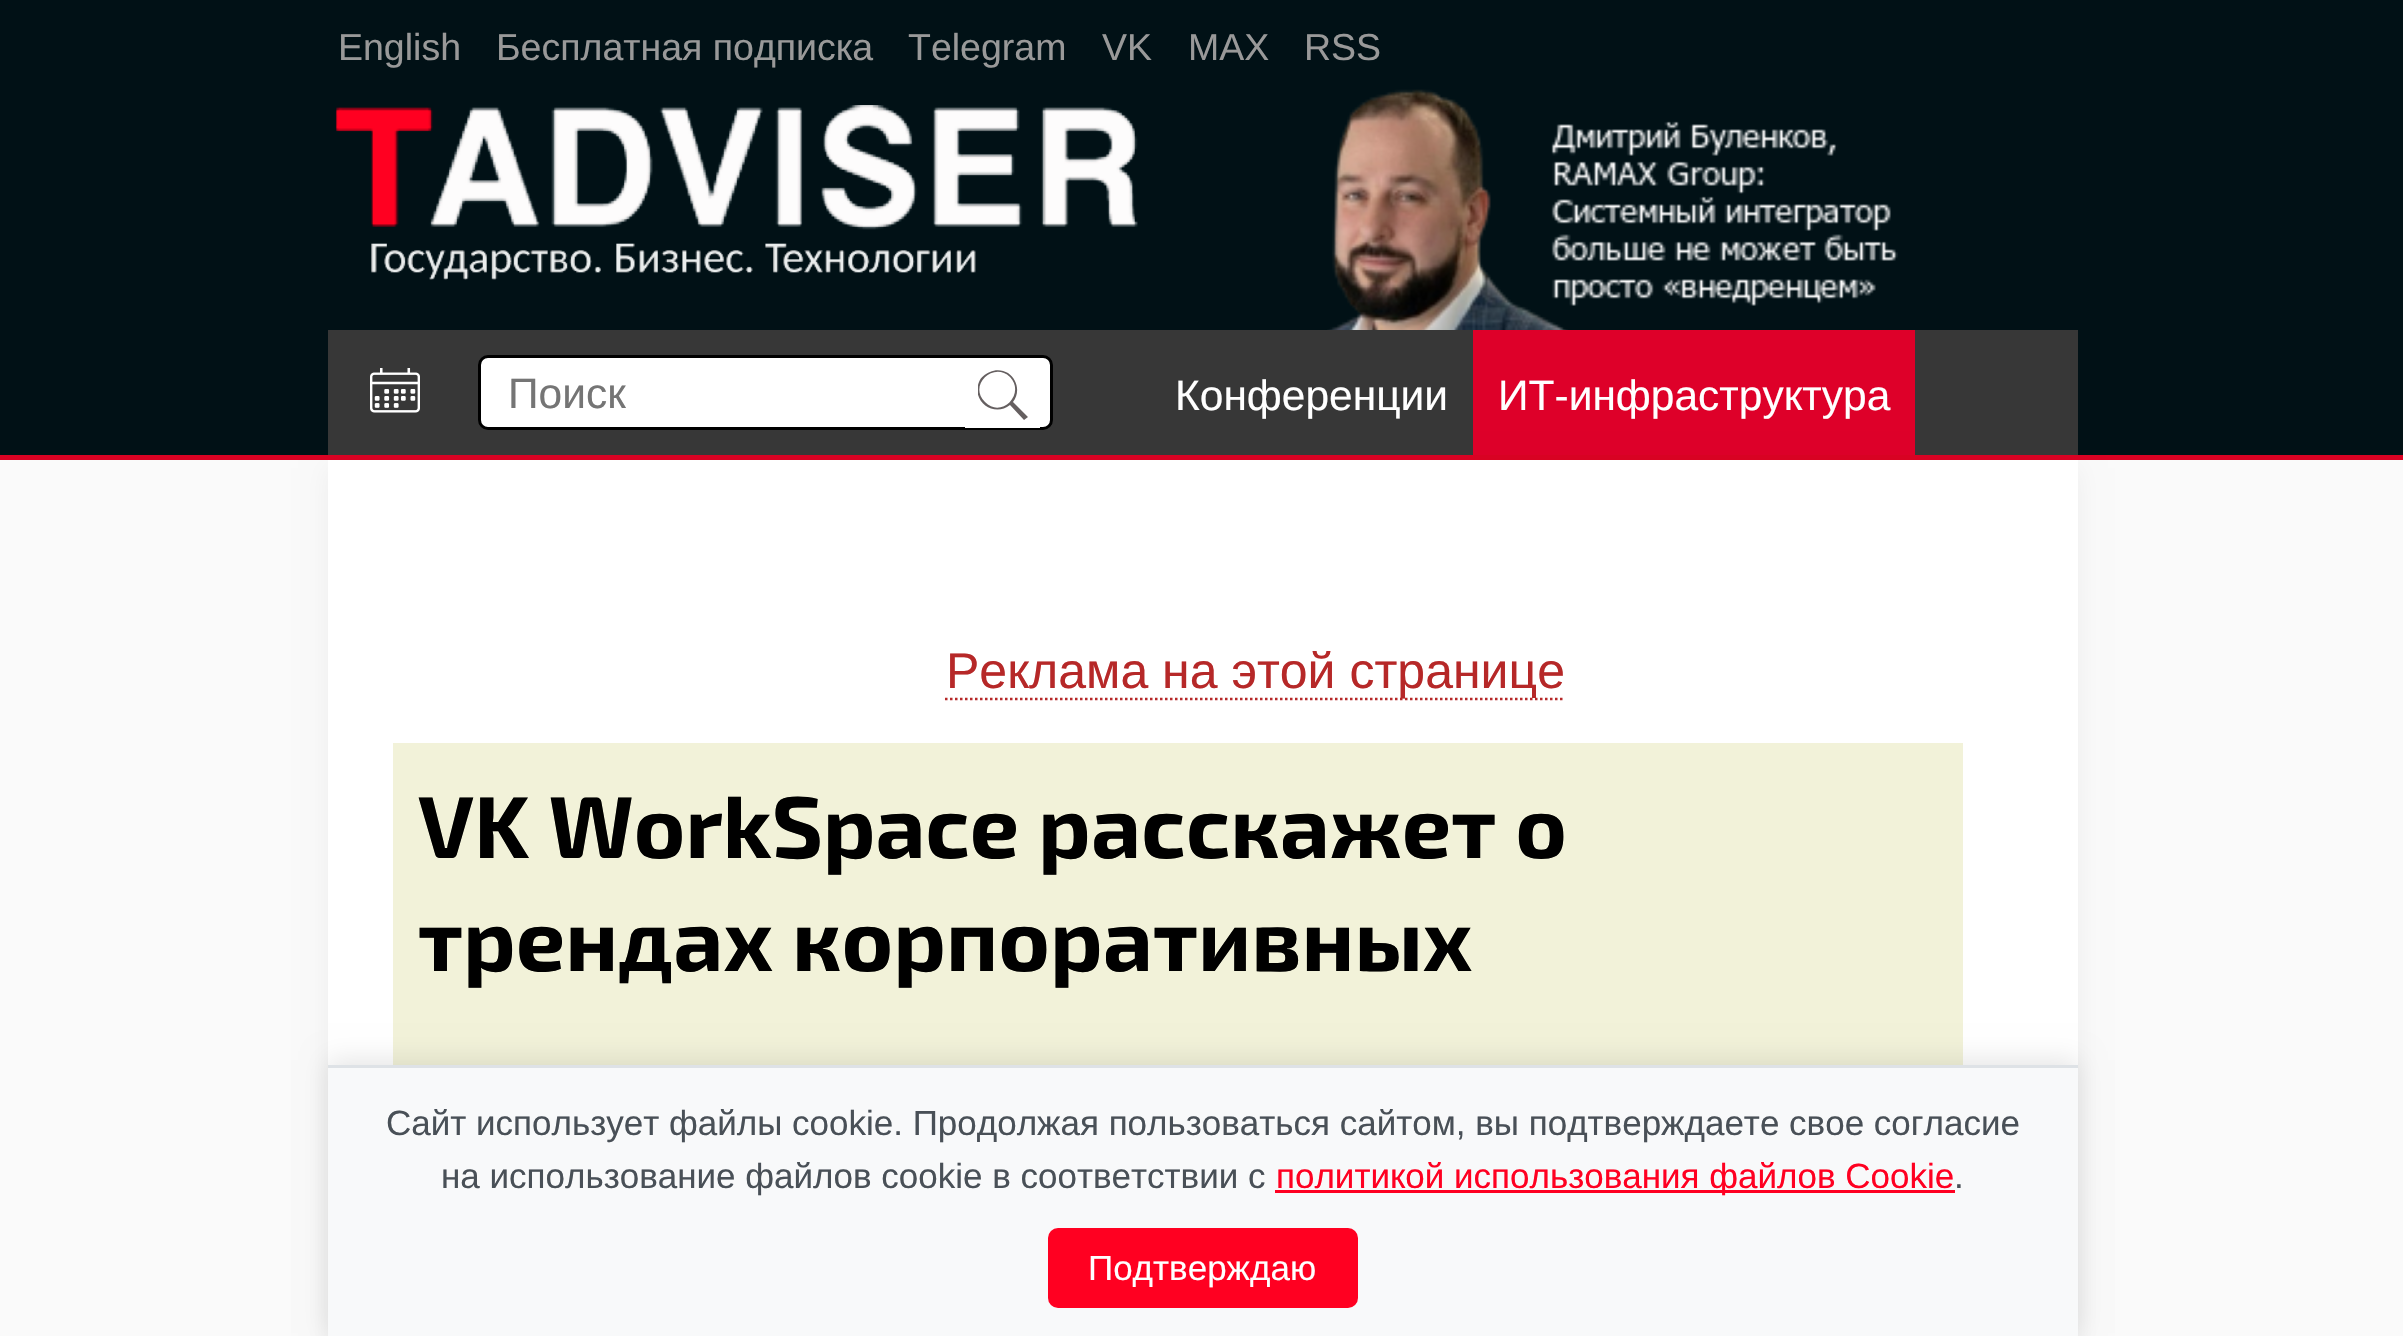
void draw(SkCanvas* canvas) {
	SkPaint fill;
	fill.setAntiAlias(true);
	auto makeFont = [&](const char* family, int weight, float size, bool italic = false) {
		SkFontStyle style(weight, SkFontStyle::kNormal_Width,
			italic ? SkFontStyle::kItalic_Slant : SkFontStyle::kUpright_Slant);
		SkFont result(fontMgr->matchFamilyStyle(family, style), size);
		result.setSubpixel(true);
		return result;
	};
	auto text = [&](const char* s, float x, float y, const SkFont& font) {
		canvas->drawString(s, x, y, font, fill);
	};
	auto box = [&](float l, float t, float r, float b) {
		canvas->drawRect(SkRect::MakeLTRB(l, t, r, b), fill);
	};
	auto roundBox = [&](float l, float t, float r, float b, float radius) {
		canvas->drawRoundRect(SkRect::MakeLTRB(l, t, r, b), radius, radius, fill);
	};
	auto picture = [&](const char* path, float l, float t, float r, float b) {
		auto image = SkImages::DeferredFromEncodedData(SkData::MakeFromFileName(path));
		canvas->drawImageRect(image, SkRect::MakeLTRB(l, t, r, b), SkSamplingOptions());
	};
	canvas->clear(0xFFFAFAFA);
	fill.setColor(0xFF011116);
	box(0, 0, 2403, 455);
	fill.setColor(0xFFDB0223);
	box(0, 455, 2403, 460);
	picture("image0.png", 335, 105, 1138, 280);
	picture("image1.png", 1327, 89, 1898, 330);
	fill.setColor(0xFF373737);
	box(328, 330, 2078, 455);
	picture("image2.png", 370, 368, 420, 413);
	fill.setColor(0xFFFFFFFF);
	canvas->drawRoundRect(SkRect::MakeLTRB(479.5f, 356.5f, 1051.5f, 428.5f), 8.5f, 8.5f, fill);
	fill.setStyle(SkPaint::kStroke_Style);
	fill.setStrokeWidth(3);
	fill.setColor(0xFF000000);
	canvas->drawRoundRect(SkRect::MakeLTRB(479.5f, 356.5f, 1051.5f, 428.5f), 8.5f, 8.5f, fill);
	fill.setStyle(SkPaint::kFill_Style);
	fill.setColor(0xFFFFFFFF);
	box(965, 427, 1040, 428);
	canvas->save();
	canvas->clipRect(SkRect::MakeLTRB(978, 370, 1028, 420));
	fill.setColor(0xFF655F60);
	canvas->drawPath(SkPathBuilder().moveTo(1028, 417).lineTo(1013, 402).cubicTo(1020, 393, 1018, 380, 1008, 373).cubicTo(1003, 370, 996, 369, 990, 372).cubicTo(985, 374, 981, 377, 979, 382).cubicTo(971, 401, 994, 418, 1010, 405).lineTo(1024, 420).close().moveTo(985, 402).cubicTo(968, 386, 993, 361, 1010, 377).cubicTo(1026, 394, 1001, 419, 985, 402).close().detach(), fill);
	canvas->restore();
	fill.setColor(0xFFDE0029);
	box(1473, 330, 1915, 455);
	fill.setColor(0x0D000000);
	fill.setMaskFilter(SkMaskFilter::MakeBlur(kNormal_SkBlurStyle, 12.5f));
	canvas->drawRect(SkRect::MakeLTRB(328, 468, 2078, 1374), fill);
	fill.setMaskFilter(nullptr);
	fill.setColor(0xFFFFFFFF);
	box(328, 460, 2078, 1065);
	fill.setStyle(SkPaint::kStroke_Style);
	fill.setStrokeWidth(2.5f);
	fill.setColor(0xFFB62828);
	fill.setPathEffect(SkDashPathEffect::Make({{2.5f, 2.5f}}, 0));
	canvas->drawPath(SkPathBuilder().moveTo(945, 699).lineTo(1565, 699).detach(), fill);
	fill.setPathEffect(nullptr);
	fill.setStyle(SkPaint::kFill_Style);
	fill.setColor(0xFFF2F2D9);
	box(393, 743, 1963, 1065);
	fill.setColor(0x1A000000);
	fill.setMaskFilter(SkMaskFilter::MakeBlur(kNormal_SkBlurStyle, 12.5f));
	canvas->drawRect(SkRect::MakeLTRB(328, 1060, 2078, 1333), fill);
	fill.setMaskFilter(nullptr);
	fill.setColor(0xFFF8F9FA);
	box(328, 1068, 2078, 1336);
	fill.setColor(0xFFDEE2E6);
	box(328, 1065, 2078, 1068);
	fill.setColor(0xFFFF0021);
	box(1275, 1190, 1955, 1193);
	roundBox(1048, 1228, 1358, 1308, 10);
	auto font1 = makeFont("Liberation Sans", 400, 37.5f);
	fill.setColor(0xFF999999);
	text("English", 338, 60, font1);
	text("Бесплатная подписка", 496, 60, font1);
	text("Telegram", 908, 60, font1);
	text("VK", 1102, 60, font1);
	text("MAX", 1188, 60, font1);
	text("RSS", 1304, 60, font1);
	auto font2 = makeFont("Liberation Sans", 400, 42.5f);
	fill.setColor(0xFF757575);
	text("Поиск", 508, 408, font2);
	fill.setColor(0xFFFFFFFF);
	text("Конференции", 1175, 410, font2);
	text("ИТ-инфраструктура", 1498, 410, font2);
	auto font3 = makeFont("Liberation Sans", 400, 50);
	fill.setColor(0xFFB62828);
	text("Реклама на этой странице", 946, 688, font3);
	auto font4 = makeFont("Exo 2", 700, 87.5f);
	fill.setColor(0xFF000000);
	text("VK WorkSpace расскажет о", 418, 858, font4);
	text("трендах корпоративных", 418, 971, font4);
	auto font5 = makeFont("Liberation Sans", 400, 35);
	fill.setColor(0xFF495057);
	text("Сайт использует файлы cookie. Продолжая пользоваться сайтом, вы подтверждаете свое согласие", 386, 1135, font5);
	text("на использование файлов cookie в соответствии с", 441, 1188, font5);
	fill.setColor(0xFFFF0021);
	text("политикой использования файлов Cookie", 1276, 1188, font5);
	fill.setColor(0xFF495057);
	text(".", 1954, 1188, font5);
	fill.setColor(0xFFFFFFFF);
	text("Подтверждаю", 1088, 1280, font5);
}
